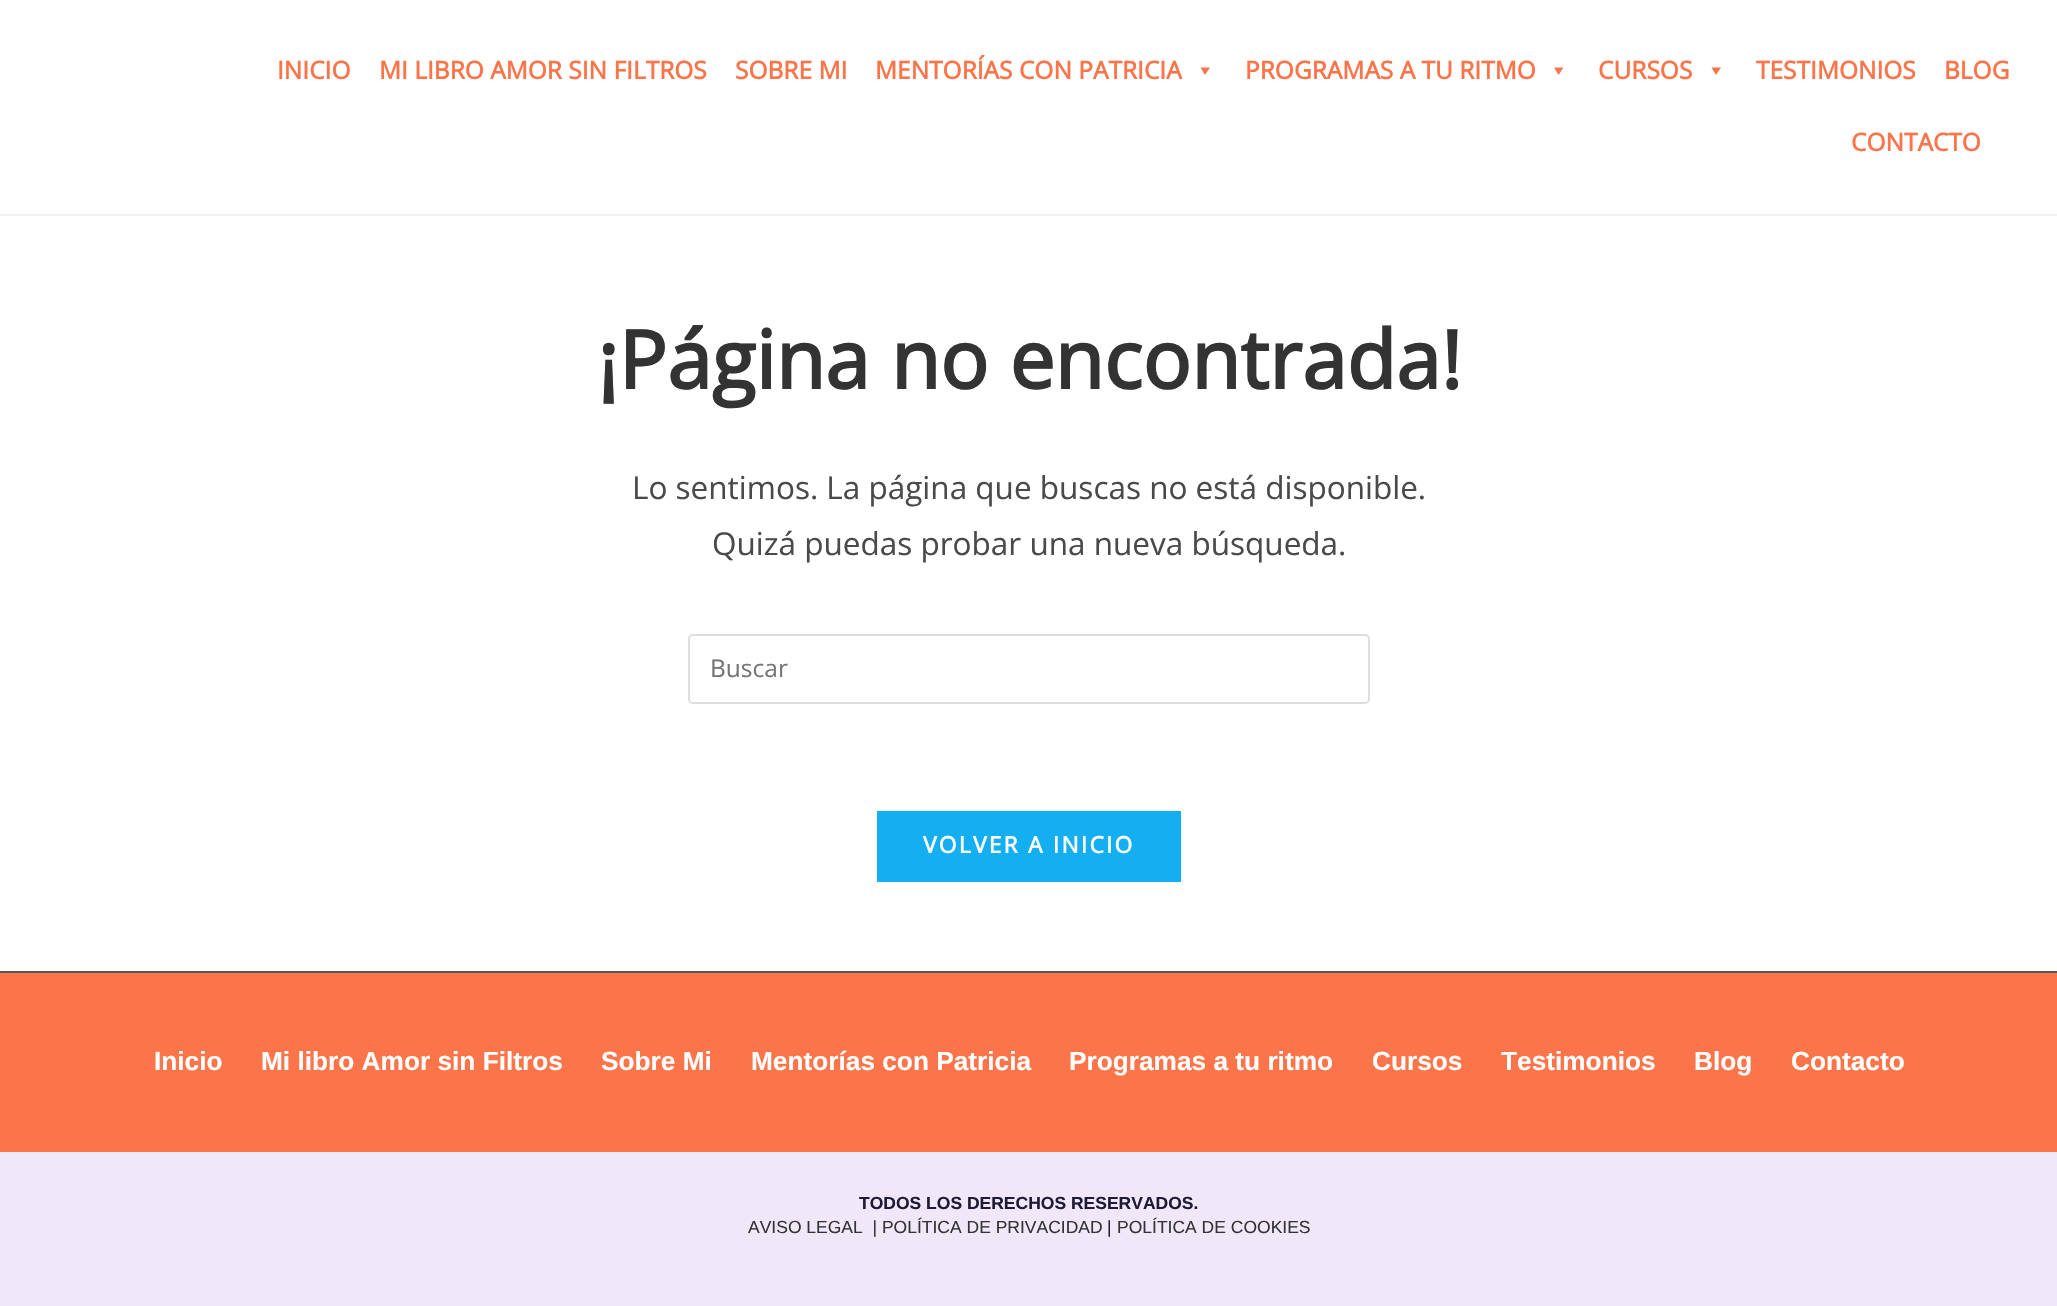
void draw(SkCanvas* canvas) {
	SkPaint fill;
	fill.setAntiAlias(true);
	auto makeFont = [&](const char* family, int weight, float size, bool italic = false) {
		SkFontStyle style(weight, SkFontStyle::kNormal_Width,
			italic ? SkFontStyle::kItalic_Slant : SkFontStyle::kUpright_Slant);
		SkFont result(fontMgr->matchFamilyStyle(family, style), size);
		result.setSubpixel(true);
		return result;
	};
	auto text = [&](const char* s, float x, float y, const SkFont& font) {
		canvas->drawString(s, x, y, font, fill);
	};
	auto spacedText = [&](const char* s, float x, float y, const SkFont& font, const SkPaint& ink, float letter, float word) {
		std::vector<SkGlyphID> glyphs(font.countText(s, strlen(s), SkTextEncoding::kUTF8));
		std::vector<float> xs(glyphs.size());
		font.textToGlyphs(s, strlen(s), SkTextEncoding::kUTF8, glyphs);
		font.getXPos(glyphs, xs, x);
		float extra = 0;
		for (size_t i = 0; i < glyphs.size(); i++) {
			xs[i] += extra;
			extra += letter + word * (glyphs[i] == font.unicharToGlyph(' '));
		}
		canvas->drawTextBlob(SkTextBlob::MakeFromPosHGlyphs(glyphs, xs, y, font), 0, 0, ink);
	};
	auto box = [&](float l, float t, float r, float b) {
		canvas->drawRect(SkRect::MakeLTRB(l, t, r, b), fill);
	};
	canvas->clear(0xFFFFFFFF);
	fill.setColor(0xFFF1F1F1);
	box(0, 214, 2057, 216);
	fill.setColor(0xFFFC754A);
	canvas->drawPath(SkPathBuilder().moveTo(1210, 67.5f).lineTo(1205, 75).lineTo(1200.5f, 67.5f).close().detach(), fill);
	canvas->drawPath(SkPathBuilder().moveTo(1563.5f, 67.5f).lineTo(1558.5f, 75).lineTo(1554, 67.5f).close().detach(), fill);
	canvas->drawPath(SkPathBuilder().moveTo(1721, 67.5f).lineTo(1716, 75).lineTo(1711.5f, 67.5f).close().detach(), fill);
	fill.setStyle(SkPaint::kStroke_Style);
	fill.setStrokeWidth(2);
	fill.setColor(0xFFDDDDDD);
	canvas->drawRoundRect(SkRect::MakeLTRB(689, 635, 1369, 703), 4, 4, fill);
	fill.setStyle(SkPaint::kFill_Style);
	fill.setColor(0xFF13AFF0);
	box(877, 811, 1181, 882);
	fill.setColor(0xFFFC754A);
	box(0, 973, 2057, 1152);
	fill.setColor(0xFF575757);
	box(0, 971, 2057, 973);
	fill.setColor(0xFFF0E8F9);
	box(0, 1152, 2057, 1306);
	auto font1 = makeFont("Open Sans", 700, 24.5f);
	fill.setColor(0xFFFC754A);
	text("INICIO", 277, 79, font1);
	text("MI LIBRO AMOR SIN FILTROS", 379, 79, font1);
	text("SOBRE MI", 735, 79, font1);
	text("MENTORÍAS CON PATRICIA", 875, 79, font1);
	text("PROGRAMAS A TU RITMO", 1245, 79, font1);
	text("CURSOS", 1598, 79, font1);
	text("TESTIMONIOS", 1756, 79, font1);
	text("BLOG", 1944, 79, font1);
	text("CONTACTO", 1851, 151, font1);
	auto font2 = makeFont("Open Sans", 700, 80.5f);
	fill.setColor(0xFF333333);
	text("¡Página no encontrada!", 597, 389, font2);
	auto font3 = makeFont("Open Sans", 400, 31.5f);
	fill.setColor(0xFF4A4A4A);
	text("Lo sentimos. La página que buscas no está disponible.", 632, 499, font3);
	text("Quizá puedas probar una nueva búsqueda.", 712, 555, font3);
	auto font4 = makeFont("Open Sans", 400, 24.5f);
	fill.setColor(0xFF757575);
	text("Buscar", 710, 677, font4);
	auto font5 = makeFont("Open Sans", 700, 22.75f);
	fill.setColor(0xFFFFFFFF);
	spacedText("VOLVER A INICIO", 923, 853, font5, fill, 2.25f, 0);
	auto font6 = makeFont("Liberation Sans", 700, 26.25f);
	text("Inicio", 154, 1070, font6);
	text("Mi libro Amor sin Filtros", 261, 1070, font6);
	text("Sobre Mi", 601, 1070, font6);
	text("Mentorías con Patricia", 751, 1070, font6);
	text("Programas a tu ritmo", 1069, 1070, font6);
	text("Cursos", 1372, 1070, font6);
	text("Testimonios", 1501, 1070, font6);
	text("Blog", 1694, 1070, font6);
	text("Contacto", 1791, 1070, font6);
	auto font7 = makeFont("Liberation Sans", 700, 17.5f);
	fill.setColor(0xFF1F1B37);
	text("TODOS LOS DERECHOS RESERVADOS.", 859, 1209, font7);
	auto font8 = makeFont("Liberation Sans", 400, 17.5f);
	fill.setColor(0xFF333333);
	text("AVISO LEGAL  | POLÍTICA DE PRIVACIDAD", 748, 1233, font8);
	fill.setColor(0xFF1F1B37);
	text("|", 1107, 1233, font8);
	fill.setColor(0xFF333333);
	text("POLÍTICA DE COOKIES", 1117, 1233, font8);
}
